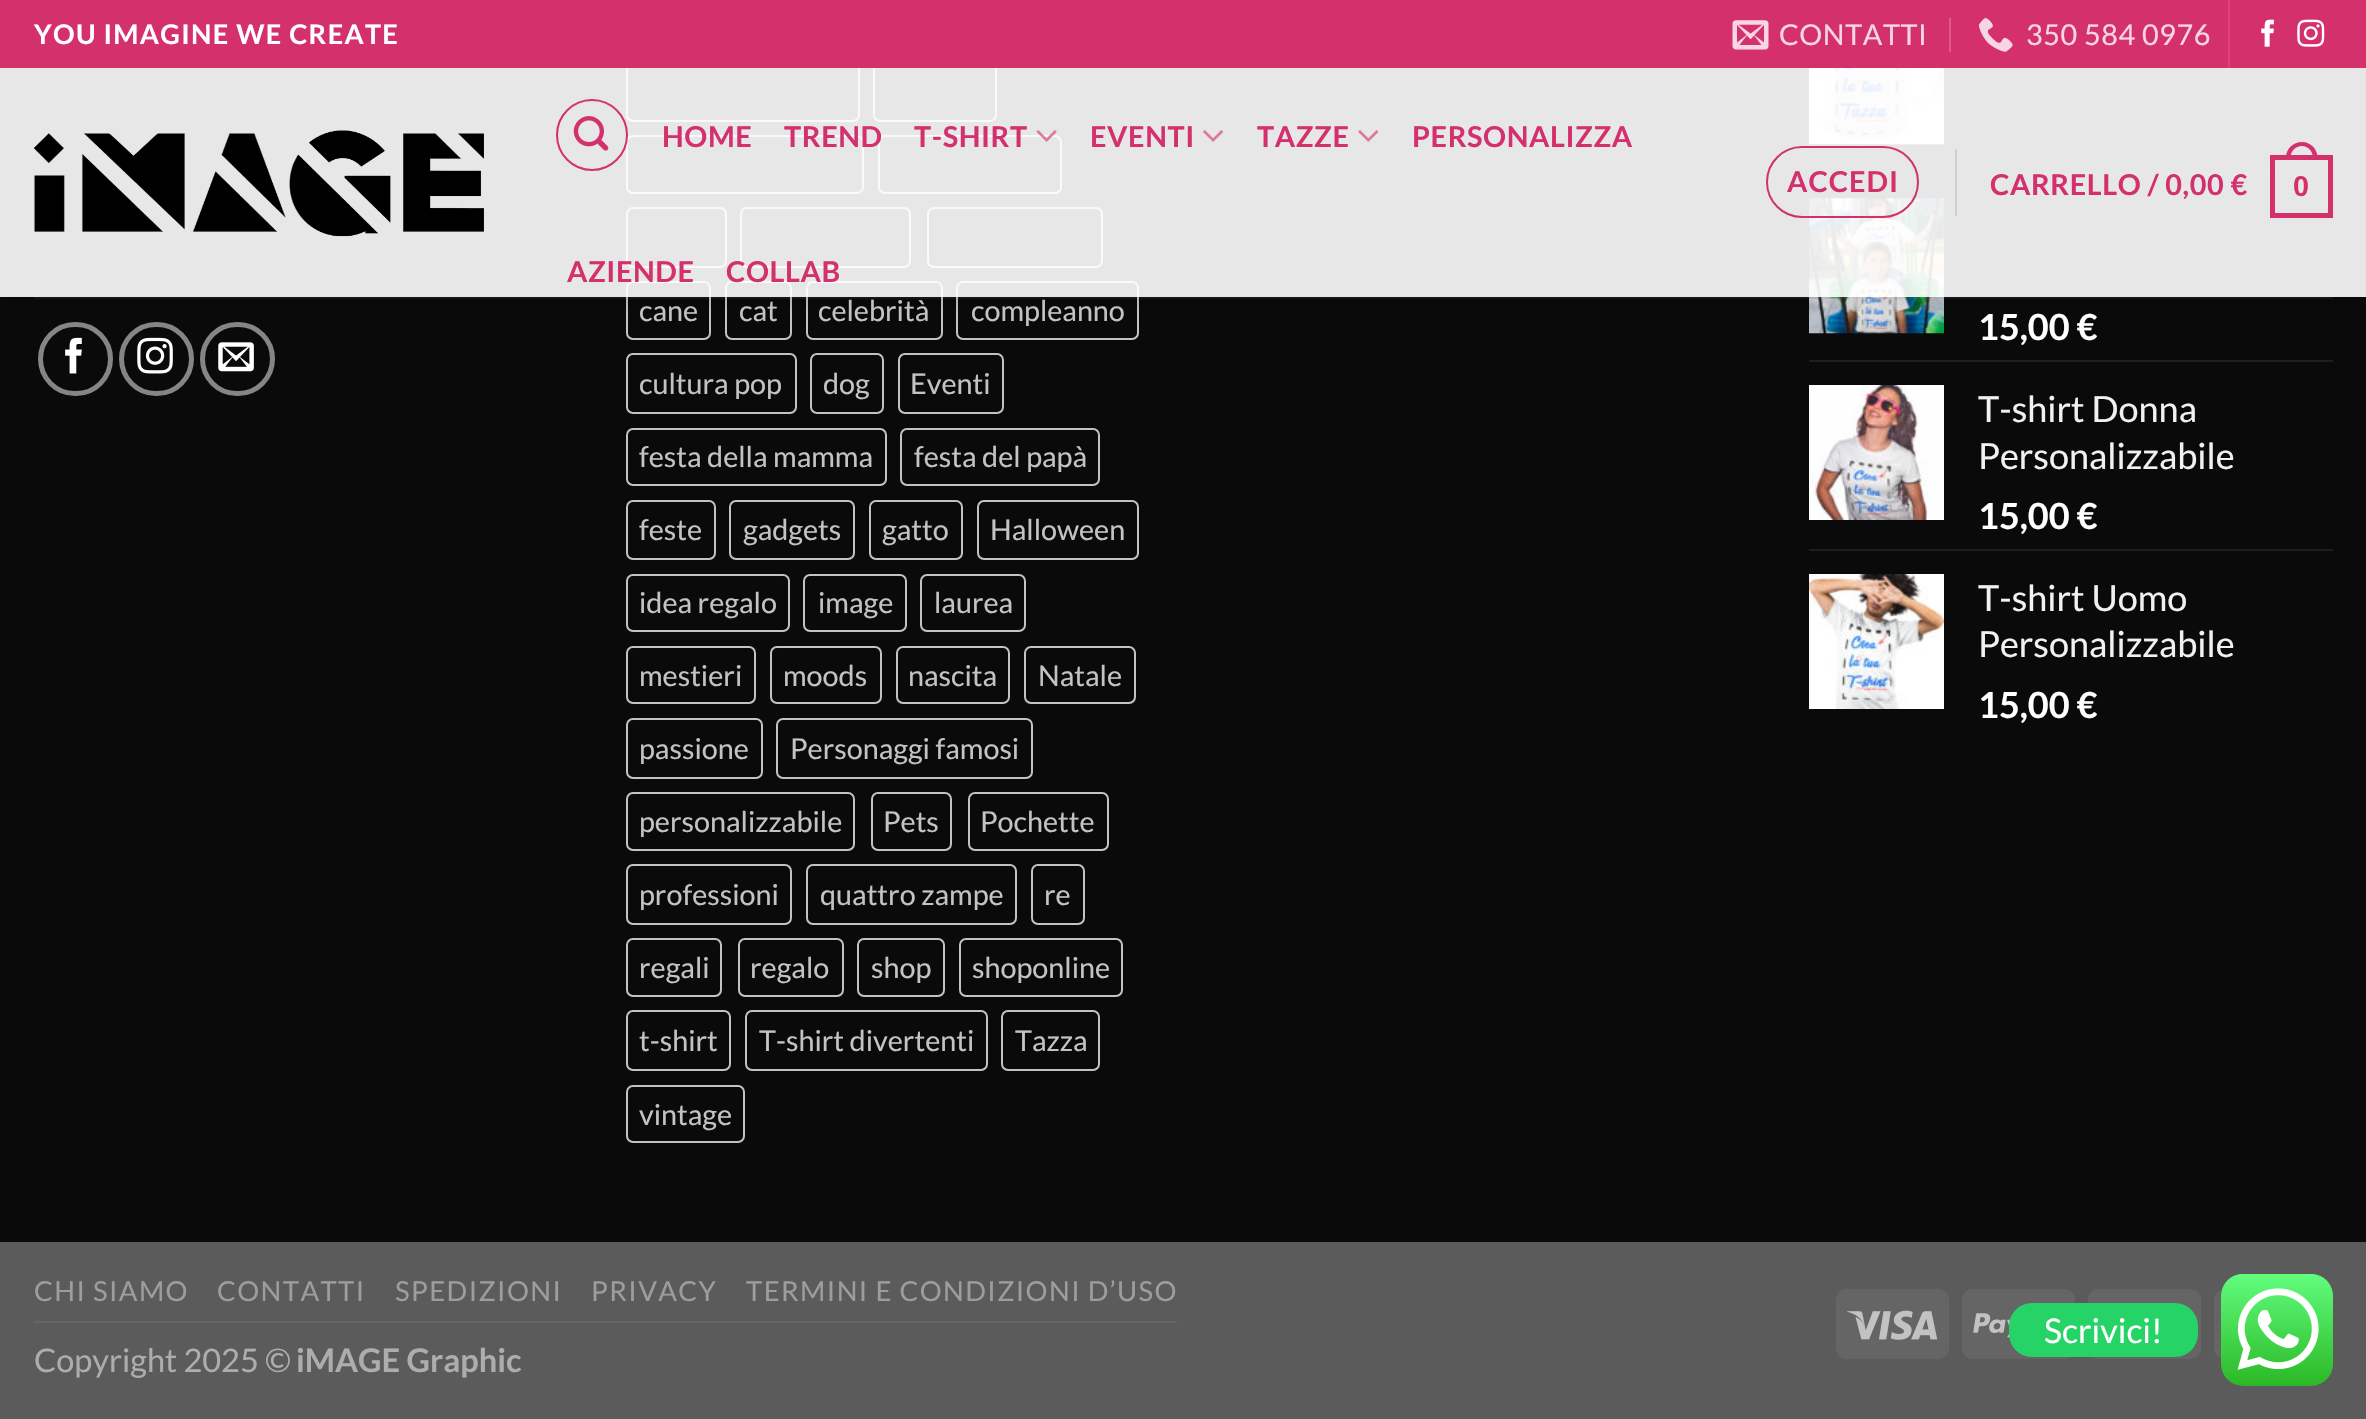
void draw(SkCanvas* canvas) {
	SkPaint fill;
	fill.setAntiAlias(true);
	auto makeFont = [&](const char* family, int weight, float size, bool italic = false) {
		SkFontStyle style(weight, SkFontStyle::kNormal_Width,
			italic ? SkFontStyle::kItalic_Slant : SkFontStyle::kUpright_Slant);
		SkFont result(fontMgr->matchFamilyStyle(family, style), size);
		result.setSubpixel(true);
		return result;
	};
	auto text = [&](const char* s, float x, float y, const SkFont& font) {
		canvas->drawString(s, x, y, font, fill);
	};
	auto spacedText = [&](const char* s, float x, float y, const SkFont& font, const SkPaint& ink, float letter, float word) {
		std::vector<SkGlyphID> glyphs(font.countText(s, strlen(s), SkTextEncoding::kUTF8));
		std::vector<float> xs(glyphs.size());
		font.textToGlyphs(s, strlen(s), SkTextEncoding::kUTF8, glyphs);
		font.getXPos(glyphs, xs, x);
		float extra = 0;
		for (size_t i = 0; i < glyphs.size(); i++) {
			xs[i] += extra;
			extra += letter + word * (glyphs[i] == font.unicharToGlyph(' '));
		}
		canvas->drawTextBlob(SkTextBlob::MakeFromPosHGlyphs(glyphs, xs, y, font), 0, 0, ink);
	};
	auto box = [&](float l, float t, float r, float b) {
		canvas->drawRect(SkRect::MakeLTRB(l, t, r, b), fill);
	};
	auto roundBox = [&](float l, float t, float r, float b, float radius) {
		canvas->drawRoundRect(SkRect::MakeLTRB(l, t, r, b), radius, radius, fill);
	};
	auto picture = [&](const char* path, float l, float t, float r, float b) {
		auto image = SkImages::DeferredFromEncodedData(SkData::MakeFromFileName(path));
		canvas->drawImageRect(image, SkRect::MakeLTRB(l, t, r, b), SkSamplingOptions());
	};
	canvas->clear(0xFF5B5B5B);
	fill.setColor(0xFF0A0A0A);
	box(0, 68, 2366, 1242);
	fill.setStyle(SkPaint::kStroke_Style);
	fill.setStrokeWidth(5);
	fill.setColor(0xFF858585);
	canvas->drawRoundRect(SkRect::MakeLTRB(40.5f, 324.5f, 110.5f, 393.5f), 34.5f, 34.5f, fill);
	canvas->drawRoundRect(SkRect::MakeLTRB(121.5f, 324.5f, 191.5f, 393.5f), 34.5f, 34.5f, fill);
	canvas->drawRoundRect(SkRect::MakeLTRB(202.5f, 324.5f, 272.5f, 393.5f), 34.5f, 34.5f, fill);
	fill.setStrokeWidth(2);
	fill.setColor(0xFFC3C3C3);
	canvas->drawRoundRect(SkRect::MakeLTRB(627, 62, 859, 121), 6, 6, fill);
	canvas->drawRoundRect(SkRect::MakeLTRB(874, 62, 996, 121), 6, 6, fill);
	canvas->drawRoundRect(SkRect::MakeLTRB(627, 136, 863, 193), 6, 6, fill);
	canvas->drawRoundRect(SkRect::MakeLTRB(879, 136, 1061, 193), 6, 6, fill);
	canvas->drawRoundRect(SkRect::MakeLTRB(627, 208, 726, 267), 6, 6, fill);
	canvas->drawRoundRect(SkRect::MakeLTRB(741, 208, 910, 267), 6, 6, fill);
	canvas->drawRoundRect(SkRect::MakeLTRB(928, 208, 1102, 267), 6, 6, fill);
	canvas->drawRoundRect(SkRect::MakeLTRB(627, 282, 710, 339), 6, 6, fill);
	canvas->drawRoundRect(SkRect::MakeLTRB(726, 282, 791, 339), 6, 6, fill);
	canvas->drawRoundRect(SkRect::MakeLTRB(807, 282, 942, 339), 6, 6, fill);
	canvas->drawRoundRect(SkRect::MakeLTRB(957, 282, 1138, 339), 6, 6, fill);
	picture("image12.png", 1809, 68, 1944, 145);
	fill.setStyle(SkPaint::kFill_Style);
	fill.setColor(0xFF1E1E1E);
	box(1809, 173, 2333, 175);
	picture("image13.png", 1809, 198, 1944, 334);
	canvas->save();
	canvas->clipRect(SkRect::MakeLTRB(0, 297, 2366, 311));
	fill.setColor(0x26000000);
	fill.setMaskFilter(SkMaskFilter::MakeBlur(kNormal_SkBlurStyle, 11));
	canvas->drawRect(SkRect::MakeLTRB(2, 2, 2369, 299), fill);
	fill.setMaskFilter(nullptr);
	canvas->restore();
	fill.setColor(0xFFD3306C);
	box(0, 0, 2366, 68);
	picture("image0.png", 1732, 20, 1769, 50);
	fill.setColor(0xFFDC5989);
	box(1949, 18, 1951, 52);
	picture("image1.png", 1978, 18, 2013, 52);
	fill.setColor(0xFFD7457B);
	box(2228, 0, 2230, 68);
	picture("image2.png", 2261, 19, 2274, 47);
	picture("image3.png", 2297, 19, 2325, 47);
	fill.setColor(0xE6FFFFFF);
	box(0, 68, 2366, 297);
	picture("image4.png", 34, 130, 484, 237);
	fill.setStyle(SkPaint::kStroke_Style);
	fill.setColor(0xFFD3306C);
	canvas->drawCircle(592, 135, 35, fill);
	picture("image5.png", 573, 116, 609, 151);
	picture("image6.png", 1036, 130, 1057, 142);
	picture("image7.png", 1203, 130, 1223, 142);
	picture("image8.png", 1358, 130, 1379, 142);
	canvas->drawRoundRect(SkRect::MakeLTRB(1767, 147, 1918, 217), 35, 35, fill);
	fill.setStyle(SkPaint::kFill_Style);
	fill.setColor(0xFFD0D0D0);
	box(1955, 149, 1957, 216);
	fill.setStyle(SkPaint::kStroke_Style);
	fill.setStrokeWidth(5);
	fill.setColor(0xFFD3306C);
	canvas->drawRect(SkRect::MakeLTRB(2272.5f, 157.5f, 2330.5f, 215.5f), fill);
	fill.setStyle(SkPaint::kFill_Style);
	canvas->drawPath(SkPathBuilder(SkPathFillType::kEvenOdd).moveTo(2302, 142).cubicTo(2310.5f, 142, 2317.5f, 149, 2317.5f, 157.5f).lineTo(2317.5f, 160).lineTo(2286, 160).lineTo(2286, 157.5f).cubicTo(2286, 149, 2293, 142, 2302, 142).close().moveTo(2302, 146).cubicTo(2308, 146, 2313, 151.5f, 2313, 157.5f).lineTo(2313, 160).lineTo(2290.5f, 160).lineTo(2290.5f, 157.5f).cubicTo(2290.5f, 151.5f, 2295.5f, 146, 2302, 146).close().detach(), fill);
	fill.setColor(0x1A777777);
	box(34, 297, 2333, 299);
	picture("image9.png", 65, 337, 82, 374);
	picture("image10.png", 137, 337, 173, 374);
	picture("image11.png", 218, 342, 254, 372);
	fill.setStyle(SkPaint::kStroke_Style);
	fill.setStrokeWidth(2);
	fill.setColor(0xFFC3C3C3);
	canvas->drawRoundRect(SkRect::MakeLTRB(627, 354, 796, 413), 6, 6, fill);
	canvas->drawRoundRect(SkRect::MakeLTRB(811, 354, 883, 413), 6, 6, fill);
	canvas->drawRoundRect(SkRect::MakeLTRB(899, 354, 1003, 413), 6, 6, fill);
	canvas->drawRoundRect(SkRect::MakeLTRB(627, 429, 886, 485), 6, 6, fill);
	canvas->drawRoundRect(SkRect::MakeLTRB(901, 429, 1099, 485), 6, 6, fill);
	canvas->drawRoundRect(SkRect::MakeLTRB(627, 501, 715, 559), 6, 6, fill);
	canvas->drawRoundRect(SkRect::MakeLTRB(730, 501, 854, 559), 6, 6, fill);
	canvas->drawRoundRect(SkRect::MakeLTRB(870, 501, 962, 559), 6, 6, fill);
	canvas->drawRoundRect(SkRect::MakeLTRB(978, 501, 1138, 559), 6, 6, fill);
	canvas->drawRoundRect(SkRect::MakeLTRB(627, 575, 789, 631), 6, 6, fill);
	canvas->drawRoundRect(SkRect::MakeLTRB(804, 575, 906, 631), 6, 6, fill);
	canvas->drawRoundRect(SkRect::MakeLTRB(921, 575, 1025, 631), 6, 6, fill);
	canvas->drawRoundRect(SkRect::MakeLTRB(627, 647, 755, 703), 6, 6, fill);
	canvas->drawRoundRect(SkRect::MakeLTRB(771, 647, 881, 703), 6, 6, fill);
	canvas->drawRoundRect(SkRect::MakeLTRB(897, 647, 1009, 703), 6, 6, fill);
	canvas->drawRoundRect(SkRect::MakeLTRB(1025, 647, 1135, 703), 6, 6, fill);
	canvas->drawRoundRect(SkRect::MakeLTRB(627, 719, 762, 778), 6, 6, fill);
	canvas->drawRoundRect(SkRect::MakeLTRB(777, 719, 1032, 778), 6, 6, fill);
	canvas->drawRoundRect(SkRect::MakeLTRB(627, 793, 854, 850), 6, 6, fill);
	canvas->drawRoundRect(SkRect::MakeLTRB(872, 793, 951, 850), 6, 6, fill);
	canvas->drawRoundRect(SkRect::MakeLTRB(969, 793, 1108, 850), 6, 6, fill);
	canvas->drawRoundRect(SkRect::MakeLTRB(627, 865, 791, 924), 6, 6, fill);
	canvas->drawRoundRect(SkRect::MakeLTRB(807, 865, 1016, 924), 6, 6, fill);
	canvas->drawRoundRect(SkRect::MakeLTRB(1032, 865, 1084, 924), 6, 6, fill);
	canvas->drawRoundRect(SkRect::MakeLTRB(627, 939, 721, 996), 6, 6, fill);
	canvas->drawRoundRect(SkRect::MakeLTRB(739, 939, 843, 996), 6, 6, fill);
	canvas->drawRoundRect(SkRect::MakeLTRB(858, 939, 944, 996), 6, 6, fill);
	canvas->drawRoundRect(SkRect::MakeLTRB(960, 939, 1122, 996), 6, 6, fill);
	canvas->drawRoundRect(SkRect::MakeLTRB(627, 1011, 730, 1070), 6, 6, fill);
	canvas->drawRoundRect(SkRect::MakeLTRB(746, 1011, 987, 1070), 6, 6, fill);
	canvas->drawRoundRect(SkRect::MakeLTRB(1002, 1011, 1099, 1070), 6, 6, fill);
	canvas->drawRoundRect(SkRect::MakeLTRB(627, 1086, 744, 1142), 6, 6, fill);
	fill.setStyle(SkPaint::kFill_Style);
	fill.setColor(0xFF1E1E1E);
	box(1809, 360, 2333, 362);
	picture("image14.png", 1809, 385, 1944, 520);
	box(1809, 549, 2333, 551);
	picture("image15.png", 1809, 574, 1944, 709);
	fill.setColor(0xFF656565);
	box(34, 1321, 1177, 1323);
	roundBox(1836, 1289, 1949, 1359, 11);
	picture("image16.png", 1847, 1310, 1937, 1340);
	roundBox(1962, 1289, 2075, 1359, 11);
	picture("image17.png", 1973, 1313, 2011, 1338);
	roundBox(2088, 1289, 2201, 1359, 11);
	roundBox(2214, 1289, 2327, 1359, 11);
	fill.setColor(0xFF25D366);
	roundBox(2009, 1303, 2198, 1357, 23);
	picture("image18.png", 2221, 1274, 2333, 1386);
	auto font1 = makeFont("Lato", 700, 27);
	fill.setColor(0xFFFFFFFF);
	spacedText("YOU IMAGINE WE CREATE", 34, 44, font1, fill, 1.35f, 0);
	auto font2 = makeFont("Lato", 400, 28.75f);
	fill.setColor(0xFFF6D6E2);
	spacedText("CONTATTI", 1779, 45, font2, fill, 0.6f, 0);
	spacedText("350 584 0976", 2026, 45, font2, fill, 0.6f, 0);
	auto font3 = makeFont("Lato", 700, 28.75f);
	fill.setColor(0xFFD3306C);
	spacedText("HOME", 662, 147, font3, fill, 0.6f, 0);
	spacedText("TREND", 784, 147, font3, fill, 0.6f, 0);
	spacedText("T-SHIRT", 914, 147, font3, fill, 0.6f, 0);
	spacedText("EVENTI", 1090, 147, font3, fill, 0.6f, 0);
	spacedText("TAZZE", 1257, 147, font3, fill, 0.6f, 0);
	spacedText("PERSONALIZZA", 1412, 147, font3, fill, 0.6f, 0);
	spacedText("AZIENDE", 567, 282, font3, fill, 0.6f, 0);
	spacedText("COLLAB", 726, 282, font3, fill, 0.6f, 0);
	spacedText("ACCEDI", 1787, 192, font3, fill, 1, 0);
	spacedText("CARRELLO / 0,00 €", 1990, 195, font3, fill, 0.6f, 0);
	auto font4 = makeFont("Liberation Sans", 700, 28.75f);
	spacedText("0", 2293, 196, font4, fill, 0.6f, 0);
	fill.setColor(0xFFC3C3C3);
	text("cane", 639, 321, font2);
	text("cat", 739, 321, font2);
	text("celebrità", 818, 321, font2);
	text("compleanno", 971, 321, font2);
	text("cultura pop", 639, 394, font2);
	text("dog", 823, 394, font2);
	text("Eventi", 910, 394, font2);
	text("festa della mamma", 639, 467, font2);
	text("festa del papà", 914, 467, font2);
	text("feste", 639, 540, font2);
	text("gadgets", 743, 540, font2);
	text("gatto", 882, 540, font2);
	text("Halloween", 990, 540, font2);
	text("idea regalo", 639, 613, font2);
	text("image", 818, 613, font2);
	text("laurea", 934, 613, font2);
	text("mestieri", 639, 686, font2);
	text("moods", 783, 686, font2);
	text("nascita", 908, 686, font2);
	text("Natale", 1038, 686, font2);
	text("passione", 639, 759, font2);
	text("Personaggi famosi", 790, 759, font2);
	text("personalizzabile", 639, 832, font2);
	text("Pets", 883, 832, font2);
	text("Pochette", 980, 832, font2);
	text("professioni", 639, 905, font2);
	text("quattro zampe", 820, 905, font2);
	text("re", 1044, 905, font2);
	text("regali", 639, 978, font2);
	text("regalo", 750, 978, font2);
	text("shop", 871, 978, font2);
	text("shoponline", 972, 978, font2);
	text("t-shirt", 639, 1051, font2);
	text("T-shirt divertenti", 759, 1051, font2);
	text("Tazza", 1015, 1051, font2);
	text("vintage", 639, 1125, font2);
	auto font5 = makeFont("Lato", 700, 36);
	fill.setColor(0xFFFFFFFF);
	text("15,00 €", 1978, 340, font5);
	auto font6 = makeFont("Lato", 400, 36);
	fill.setColor(0xFFF1F1F1);
	text("T-shirt Donna", 1978, 422, font6);
	text("Personalizzabile", 1978, 469, font6);
	fill.setColor(0xFFFFFFFF);
	text("15,00 €", 1978, 529, font5);
	fill.setColor(0xFFF1F1F1);
	text("T-shirt Uomo", 1978, 611, font6);
	text("Personalizzabile", 1978, 657, font6);
	fill.setColor(0xFFFFFFFF);
	text("15,00 €", 1978, 718, font5);
	auto font7 = makeFont("Lato", 400, 27.5f);
	fill.setColor(0xFF9D9D9D);
	spacedText("CHI SIAMO", 34, 1301, font7, fill, 1.4f, 0);
	spacedText("CONTATTI", 217, 1301, font7, fill, 1.4f, 0);
	spacedText("SPEDIZIONI", 395, 1301, font7, fill, 1.4f, 0);
	spacedText("PRIVACY", 591, 1301, font7, fill, 1.4f, 0);
	spacedText("TERMINI E CONDIZIONI D’USO", 746, 1301, font7, fill, 1.4f, 0);
	auto font8 = makeFont("Lato", 400, 32.5f);
	fill.setColor(0xFFADADAD);
	text("Copyright 2025 ©", 34, 1372, font8);
	auto font9 = makeFont("Lato", 700, 32.5f);
	text("iMAGE Graphic", 296, 1372, font9);
	auto font10 = makeFont("Lato", 400, 34);
	fill.setColor(0xFFFFFFFF);
	text("Scrivici!", 2044, 1343, font10);
}
